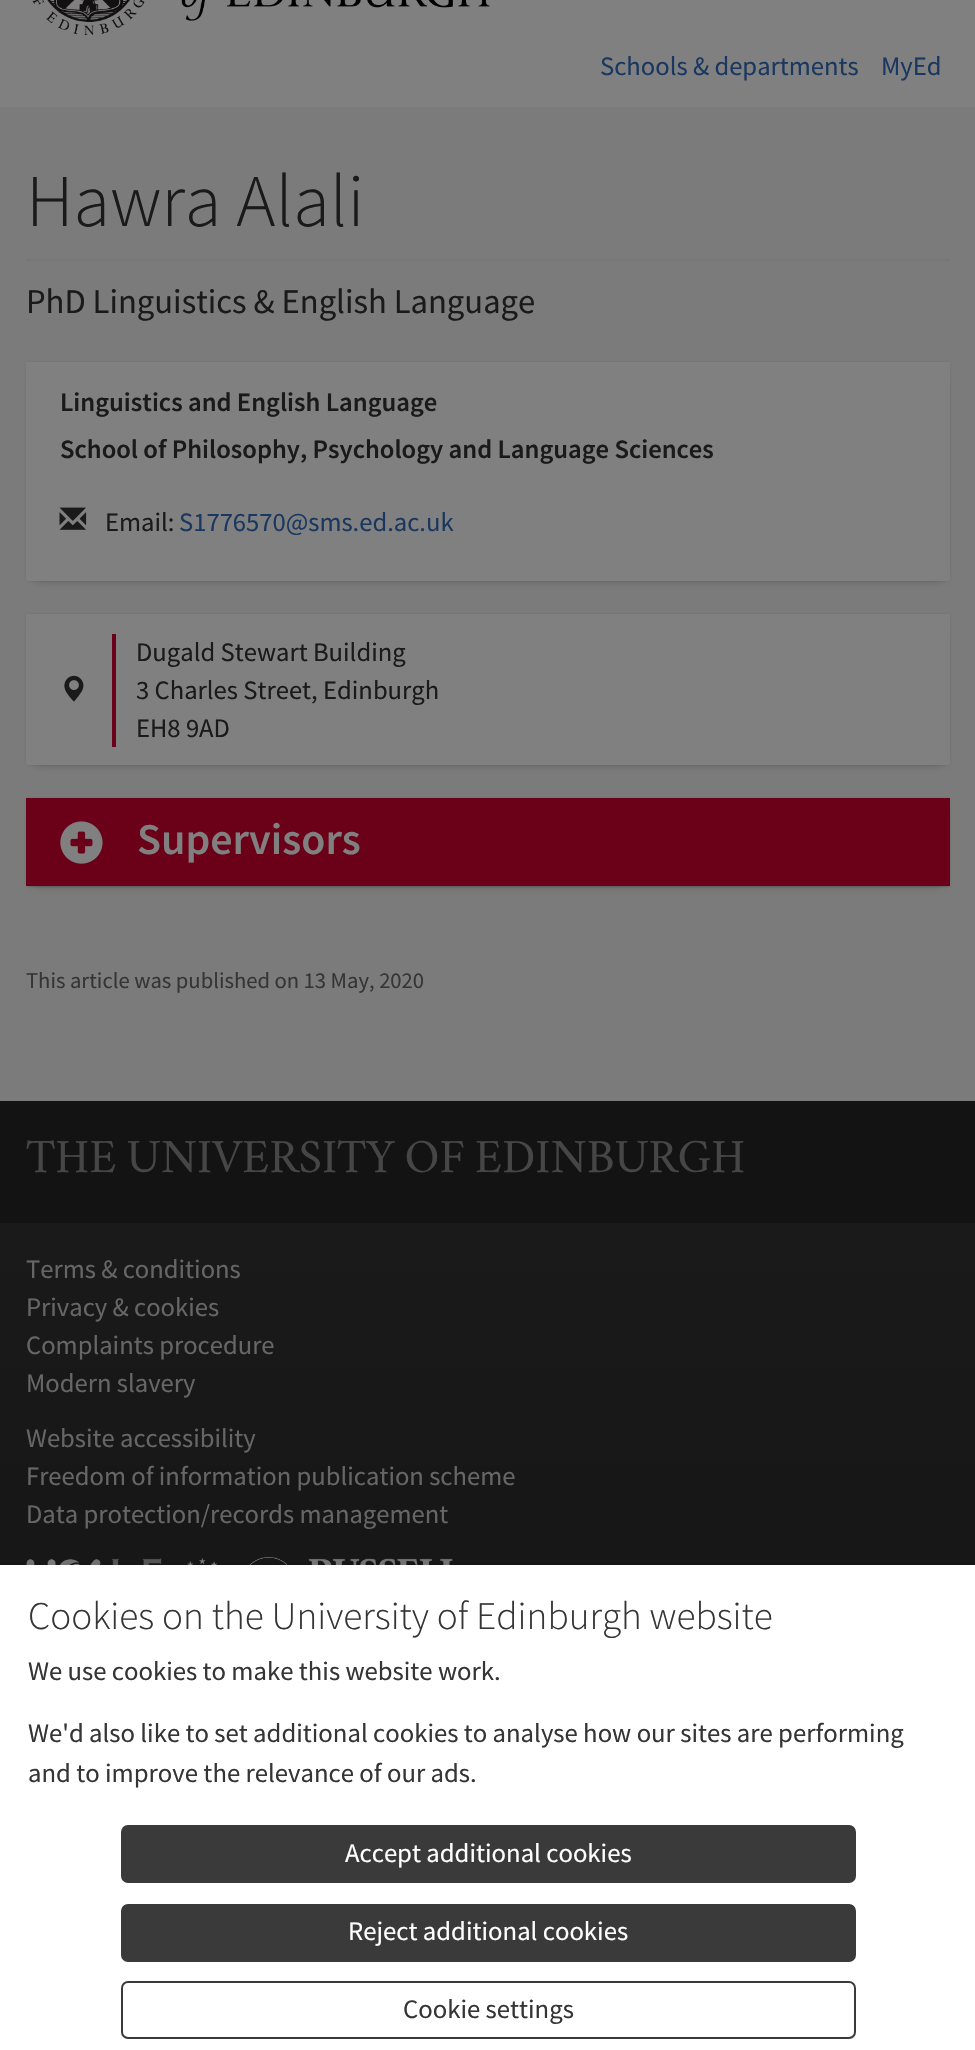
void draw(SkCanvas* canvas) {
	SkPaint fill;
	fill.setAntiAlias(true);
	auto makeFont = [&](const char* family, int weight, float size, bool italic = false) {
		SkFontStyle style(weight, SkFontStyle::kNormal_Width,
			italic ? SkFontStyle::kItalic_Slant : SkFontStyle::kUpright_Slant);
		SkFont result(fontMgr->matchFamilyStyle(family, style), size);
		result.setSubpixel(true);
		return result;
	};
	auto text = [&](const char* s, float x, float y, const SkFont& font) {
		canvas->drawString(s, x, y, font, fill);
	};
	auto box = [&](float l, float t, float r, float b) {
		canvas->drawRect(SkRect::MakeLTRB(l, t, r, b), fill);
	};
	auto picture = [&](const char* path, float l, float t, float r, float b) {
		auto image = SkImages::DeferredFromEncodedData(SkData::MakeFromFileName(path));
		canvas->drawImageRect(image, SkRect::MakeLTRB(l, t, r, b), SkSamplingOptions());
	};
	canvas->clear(0xFF7B7B7B);
	fill.setColor(0xFF808080);
	box(0, 0, 975, 107);
	picture("image0.png", 32, 0, 490, 35);
	fill.setColor(0xFF777777);
	box(26, 259, 950, 261);
	fill.setColor(0x1A000000);
	fill.setMaskFilter(SkMaskFilter::MakeBlur(kNormal_SkBlurStyle, 1));
	canvas->drawRect(SkRect::MakeLTRB(26, 362, 950, 581), fill);
	fill.setMaskFilter(nullptr);
	fill.setColor(0x4D000000);
	fill.setMaskFilter(SkMaskFilter::MakeBlur(kNormal_SkBlurStyle, 5));
	canvas->drawRect(SkRect::MakeLTRB(35, 378, 942, 579), fill);
	fill.setMaskFilter(nullptr);
	fill.setColor(0xFF808080);
	box(26, 362, 950, 581);
	picture("image1.png", 59, 507, 87, 530);
	fill.setColor(0x1A000000);
	fill.setMaskFilter(SkMaskFilter::MakeBlur(kNormal_SkBlurStyle, 1));
	canvas->drawRect(SkRect::MakeLTRB(26, 614, 950, 765), fill);
	fill.setMaskFilter(nullptr);
	fill.setColor(0x4D000000);
	fill.setMaskFilter(SkMaskFilter::MakeBlur(kNormal_SkBlurStyle, 5));
	canvas->drawRect(SkRect::MakeLTRB(35, 630, 942, 763), fill);
	fill.setMaskFilter(nullptr);
	fill.setColor(0xFF808080);
	box(26, 614, 950, 765);
	picture("image2.png", 64, 675, 84, 702);
	fill.setColor(0xFF6B0019);
	box(112, 634, 116, 747);
	fill.setColor(0x1A000000);
	fill.setMaskFilter(SkMaskFilter::MakeBlur(kNormal_SkBlurStyle, 1));
	canvas->drawRect(SkRect::MakeLTRB(26, 798, 950, 886), fill);
	fill.setMaskFilter(nullptr);
	fill.setColor(0x4D000000);
	fill.setMaskFilter(SkMaskFilter::MakeBlur(kNormal_SkBlurStyle, 5));
	canvas->drawRect(SkRect::MakeLTRB(35, 814, 942, 884), fill);
	fill.setMaskFilter(nullptr);
	fill.setColor(0x26000000);
	fill.setMaskFilter(SkMaskFilter::MakeBlur(kNormal_SkBlurStyle, 1));
	canvas->drawRect(SkRect::MakeLTRB(28, 803, 949, 887), fill);
	fill.setMaskFilter(nullptr);
	fill.setColor(0xFF6B0019);
	box(26, 798, 950, 886);
	picture("image3.png", 60, 821, 103, 864);
	fill.setColor(0xFF131313);
	box(0, 1101, 975, 1223);
	{
		const SkColor colors[] = {0xFF1A1A1A, 0xFF131313};
		const float stops[] = {0, 1};
		const SkPoint ends[] = {{488, 1223}, {488, 1901}};
		fill.setShader(SkGradientShader::MakeLinear(ends, colors, stops, 2, SkTileMode::kClamp));
		fill.setAlpha(255);
	}
	box(0, 1223, 975, 1565);
	picture("image4.png", 26, 1557, 453, 1565);
	fill.setShader(nullptr);
	fill.setColor(0xFFFFFFFF);
	box(0, 1565, 975, 2050);
	fill.setColor(0xFF3A3A3A);
	canvas->drawRoundRect(SkRect::MakeLTRB(122, 1826, 855, 1882), 6, 6, fill);
	fill.setStyle(SkPaint::kStroke_Style);
	fill.setStrokeWidth(2);
	canvas->drawRoundRect(SkRect::MakeLTRB(122, 1826, 855, 1882), 6, 6, fill);
	fill.setStyle(SkPaint::kFill_Style);
	canvas->drawRoundRect(SkRect::MakeLTRB(122, 1905, 855, 1961), 6, 6, fill);
	fill.setStyle(SkPaint::kStroke_Style);
	canvas->drawRoundRect(SkRect::MakeLTRB(122, 1905, 855, 1961), 6, 6, fill);
	canvas->drawRoundRect(SkRect::MakeLTRB(122, 1982, 855, 2038), 6, 6, fill);
	auto font1 = makeFont("Source Sans Pro", 400, 26.6f);
	fill.setStyle(SkPaint::kFill_Style);
	fill.setColor(0xFF1A3760);
	text("Schools & departments", 600, 75, font1);
	text("MyEd", 881, 75, font1);
	auto font2 = makeFont("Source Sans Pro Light", 300, 74.5f);
	fill.setColor(0xFF1A1A1A);
	text("Hawra Alali", 26, 226, font2);
	auto font3 = makeFont("Source Sans Pro", 400, 34.6f);
	text("PhD Linguistics & English Language", 26, 313, font3);
	auto font4 = makeFont("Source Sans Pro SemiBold", 600, 26.6f);
	text("Linguistics and English Language", 60, 411, font4);
	text("School of Philosophy, Psychology and Language Sciences", 60, 458, font4);
	text("Email:", 105, 531, font1);
	fill.setColor(0xFF1A3760);
	text("S1776570@sms.ed.ac.uk", 179, 531, font1);
	fill.setColor(0xFF1A1A1A);
	text("Dugald Stewart Building", 136, 661, font1);
	text("3 Charles Street, Edinburgh", 136, 699, font1);
	text("EH8 9AD", 136, 737, font1);
	auto font5 = makeFont("Source Sans Pro SemiBold", 600, 44);
	fill.setColor(0xFF808080);
	text("Supervisors", 137, 854, font5);
	auto font6 = makeFont("Source Sans Pro", 400, 22.6f);
	fill.setColor(0xFF353535);
	text("This article was published on 13 May, 2020", 26, 988, font6);
	auto font7 = makeFont("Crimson", 400, 47.9f);
	fill.setColor(0xFF464646);
	text("THE UNIVERSITY OF EDINBURGH", 26, 1172, font7);
	fill.setColor(0xFF666666);
	text("Terms & conditions", 26, 1278, font1);
	text("Privacy & cookies", 26, 1316, font1);
	text("Complaints procedure", 26, 1354, font1);
	text("Modern slavery", 26, 1392, font1);
	text("Website accessibility", 26, 1447, font1);
	text("Freedom of information publication scheme", 26, 1485, font1);
	text("Data protection/records management", 26, 1523, font1);
	auto font8 = makeFont("Source Sans Pro Light", 300, 39.25f);
	fill.setColor(0xFF353535);
	text("Cookies on the University of Edinburgh website", 28, 1629, font8);
	auto font9 = makeFont("Source Sans Pro", 400, 26.7f);
	text("We use cookies to make this website work.", 28, 1680, font9);
	text("We'd also like to set additional cookies to analyse how our sites are performing", 28, 1742, font9);
	text("and to improve the relevance of our ads.", 28, 1782, font9);
	fill.setColor(0xFFFFFFFF);
	text("Accept additional cookies", 345, 1862, font9);
	text("Reject additional cookies", 348, 1940, font9);
	fill.setColor(0xFF353535);
	text("Cookie settings", 403, 2018, font9);
}
